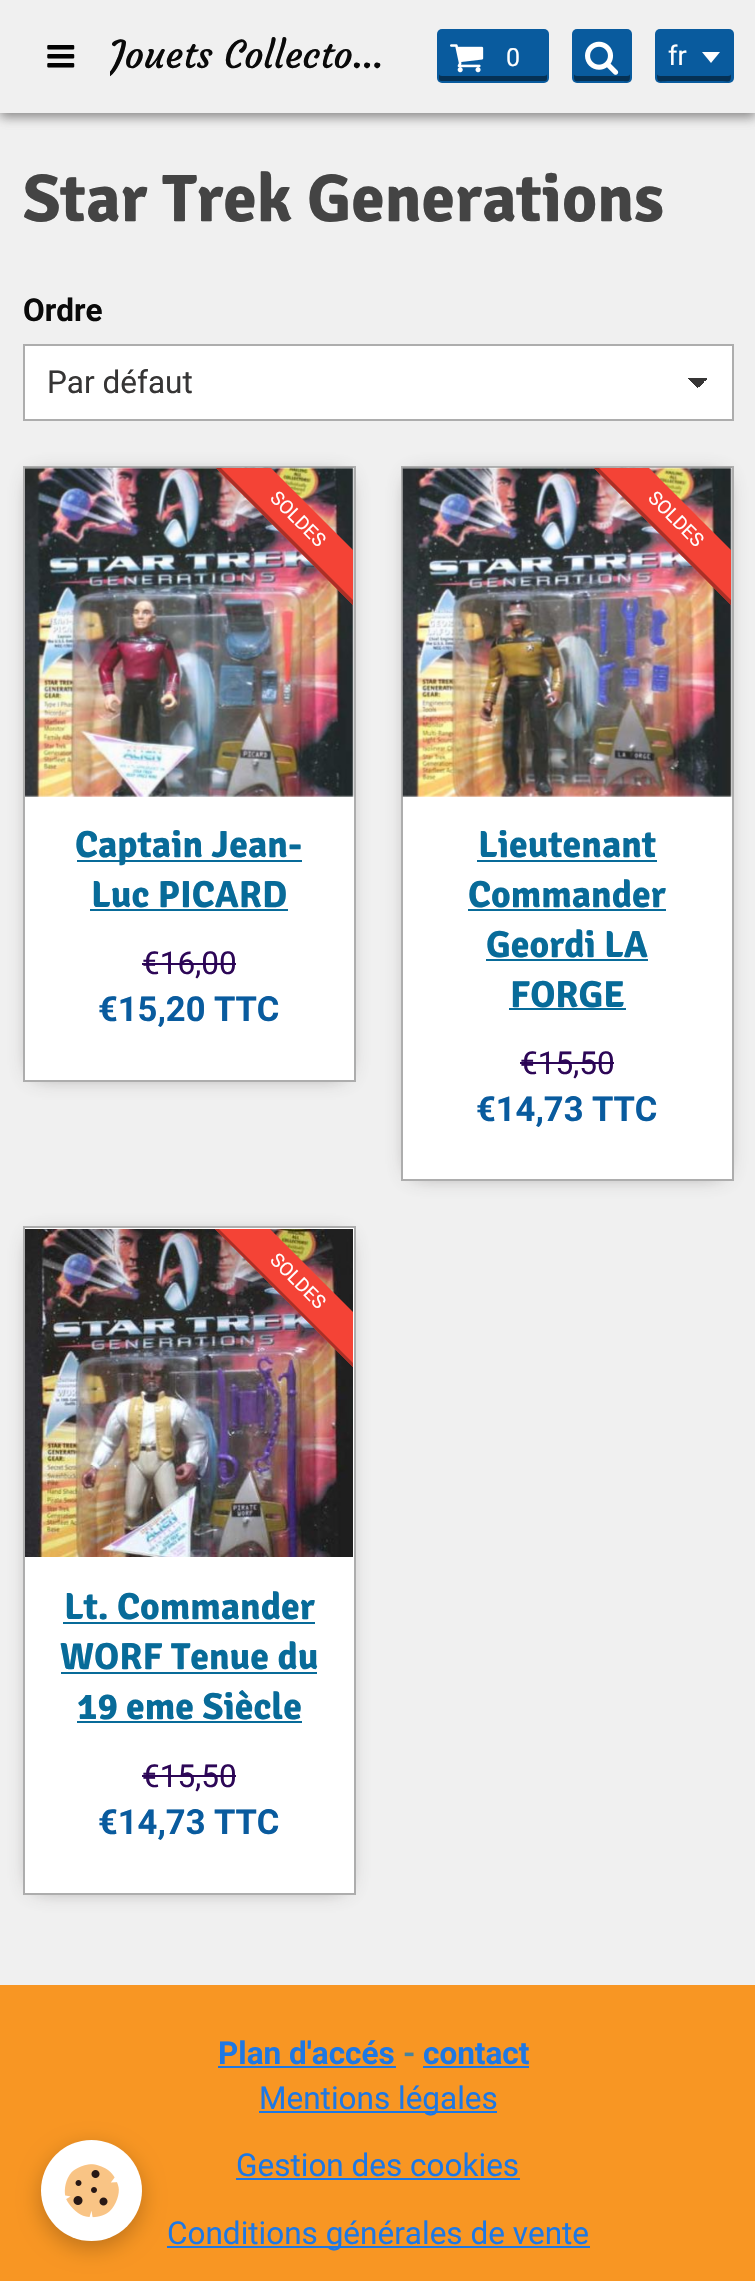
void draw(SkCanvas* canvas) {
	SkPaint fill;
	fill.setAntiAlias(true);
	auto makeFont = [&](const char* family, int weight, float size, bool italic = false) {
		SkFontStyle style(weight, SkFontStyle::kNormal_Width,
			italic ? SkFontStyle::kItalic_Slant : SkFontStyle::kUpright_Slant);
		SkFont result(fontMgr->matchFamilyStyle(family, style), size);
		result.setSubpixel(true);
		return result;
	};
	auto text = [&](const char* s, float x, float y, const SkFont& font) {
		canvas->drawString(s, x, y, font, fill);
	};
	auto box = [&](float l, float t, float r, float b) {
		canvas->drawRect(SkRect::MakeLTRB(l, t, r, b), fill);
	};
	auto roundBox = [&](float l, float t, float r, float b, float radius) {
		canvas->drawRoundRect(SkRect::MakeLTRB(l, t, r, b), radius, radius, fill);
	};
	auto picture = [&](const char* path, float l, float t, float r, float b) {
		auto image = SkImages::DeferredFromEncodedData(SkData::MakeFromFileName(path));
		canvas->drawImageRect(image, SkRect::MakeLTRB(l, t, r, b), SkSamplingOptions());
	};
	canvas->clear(0xFFF89623);
	fill.setColor(0xFFF0F0F0);
	box(0, 113, 755, 1985);
	fill.setColor(0xBF636161);
	fill.setMaskFilter(SkMaskFilter::MakeBlur(kNormal_SkBlurStyle, 5.5f));
	canvas->drawRect(SkRect::MakeLTRB(0, 5, 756, 117), fill);
	fill.setMaskFilter(nullptr);
	fill.setColor(0xFFF0F0F0);
	box(0, 0, 755, 113);
	picture("image0.png", 47, 45, 75, 68);
	fill.setColor(0xFF095B9E);
	roundBox(437, 29, 549, 83, 5);
	fill.setColor(0xFF053155);
	canvas->drawPath(SkPathBuilder().moveTo(439, 74).lineTo(439, 79).cubicTo(439, 80, 440, 81, 441, 81).lineTo(545, 81).cubicTo(546, 81, 547, 80, 547, 79).lineTo(547, 74).cubicTo(547, 75, 546, 76, 544, 76).lineTo(442, 76).cubicTo(440, 76, 439, 75, 439, 74).close().detach(), fill);
	picture("image1.png", 450, 44, 484, 73);
	fill.setColor(0xFF095B9E);
	roundBox(572, 29, 632, 83, 5);
	fill.setColor(0xFF053155);
	canvas->drawPath(SkPathBuilder().moveTo(574, 74).cubicTo(574, 83, 574, 81, 585, 81).lineTo(619, 81).cubicTo(630, 81, 630, 83, 630, 74).cubicTo(630, 75, 629, 76, 627, 76).lineTo(577, 76).cubicTo(575, 76, 574, 75, 574, 74).close().detach(), fill);
	picture("image2.png", 585, 41, 619, 75);
	fill.setColor(0xFF095B9E);
	roundBox(655, 29, 734, 83, 5);
	fill.setColor(0xFF053155);
	canvas->drawPath(SkPathBuilder().moveTo(657, 74).cubicTo(657, 84, 658, 81, 671, 81).lineTo(717, 81).cubicTo(730, 81, 731, 84, 731, 74).cubicTo(731, 75, 730, 76, 728, 76).lineTo(660, 76).cubicTo(658, 76, 657, 75, 657, 74).close().detach(), fill);
	fill.setColor(0xFFFFFFFF);
	canvas->drawPath(SkPathBuilder().moveTo(702, 52).lineTo(720, 52).lineTo(711, 63).close().detach(), fill);
	box(25, 346, 732, 419);
	{
		const SkColor colors[] = {0xFF363535, 0xFFFFFFFF};
		const float stops[] = {0.5f, 0.5f};
		const SkPoint ends[] = {{698, 377}, {709, 388}};
		fill.setShader(SkGradientShader::MakeLinear(ends, colors, stops, 2, SkTileMode::kClamp));
		fill.setAlpha(255);
	}
	box(698, 378, 708, 387);
	{
		const SkColor colors[] = {0xFFFFFFFF, 0xFF363535};
		const float stops[] = {0.5f, 0.5f};
		const SkPoint ends[] = {{686, 388}, {698, 377}};
		fill.setShader(SkGradientShader::MakeLinear(ends, colors, stops, 2, SkTileMode::kClamp));
		fill.setAlpha(255);
	}
	box(688, 378, 698, 388);
	fill.setStyle(SkPaint::kStroke_Style);
	fill.setStrokeWidth(2);
	fill.setShader(nullptr);
	fill.setColor(0xFFADADAD);
	canvas->drawRect(SkRect::MakeLTRB(24, 345, 733, 420), fill);
	fill.setStyle(SkPaint::kFill_Style);
	fill.setColor(0xD4615D5D);
	fill.setMaskFilter(SkMaskFilter::MakeBlur(kNormal_SkBlurStyle, 11));
	canvas->drawRect(SkRect::MakeLTRB(34, 479, 344, 1073), fill);
	fill.setMaskFilter(nullptr);
	fill.setColor(0xFFFFFFFF);
	canvas->drawRect(SkRect::MakeLTRB(24, 467, 355, 1081), fill);
	fill.setStyle(SkPaint::kStroke_Style);
	fill.setColor(0xFFADADAD);
	canvas->drawRect(SkRect::MakeLTRB(24, 467, 355, 1081), fill);
	picture("image3.png", 25, 467, 354, 797);
	canvas->save();
	canvas->clipRect(SkRect::MakeLTRB(185, 468, 353, 637));
	fill.setStyle(SkPaint::kFill_Style);
	fill.setColor(0xFFF44336);
	canvas->drawPath(SkPathBuilder().moveTo(226, 423).lineTo(393, 590).lineTo(366, 618).lineTo(199, 451).close().detach(), fill);
	fill.setColor(0xFFAB2F26);
	canvas->drawPath(SkPathBuilder().moveTo(201, 448).lineTo(368, 615).lineTo(366, 618).lineTo(199, 451).close().detach(), fill);
	canvas->restore();
	fill.setColor(0xFF086B99);
	box(77, 860, 302, 862);
	box(90, 909, 288, 911);
	fill.setColor(0xD4615D5D);
	fill.setMaskFilter(SkMaskFilter::MakeBlur(kNormal_SkBlurStyle, 11));
	canvas->drawRect(SkRect::MakeLTRB(412, 479, 722, 1172), fill);
	fill.setMaskFilter(nullptr);
	fill.setColor(0xFFFFFFFF);
	canvas->drawRect(SkRect::MakeLTRB(402, 467, 733, 1180), fill);
	fill.setStyle(SkPaint::kStroke_Style);
	fill.setColor(0xFFADADAD);
	canvas->drawRect(SkRect::MakeLTRB(402, 467, 733, 1180), fill);
	picture("image4.png", 402, 467, 732, 797);
	canvas->save();
	canvas->clipRect(SkRect::MakeLTRB(563, 468, 731, 637));
	fill.setStyle(SkPaint::kFill_Style);
	fill.setColor(0xFFF44336);
	canvas->drawPath(SkPathBuilder().moveTo(604, 423).lineTo(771, 590).lineTo(744, 618).lineTo(577, 451).close().detach(), fill);
	fill.setColor(0xFFAB2F26);
	canvas->drawPath(SkPathBuilder().moveTo(579, 448).lineTo(746, 615).lineTo(744, 618).lineTo(577, 451).close().detach(), fill);
	canvas->restore();
	fill.setColor(0xFF086B99);
	box(477, 860, 657, 862);
	box(468, 909, 666, 911);
	box(486, 959, 648, 961);
	box(509, 1008, 626, 1010);
	fill.setColor(0xD4615D5D);
	fill.setMaskFilter(SkMaskFilter::MakeBlur(kNormal_SkBlurStyle, 11));
	canvas->drawRect(SkRect::MakeLTRB(34, 1240, 344, 1886), fill);
	fill.setMaskFilter(nullptr);
	fill.setColor(0xFFFFFFFF);
	canvas->drawRect(SkRect::MakeLTRB(24, 1227, 355, 1894), fill);
	fill.setStyle(SkPaint::kStroke_Style);
	fill.setColor(0xFFADADAD);
	canvas->drawRect(SkRect::MakeLTRB(24, 1227, 355, 1894), fill);
	picture("image5.png", 25, 1229, 353, 1557);
	canvas->save();
	canvas->clipRect(SkRect::MakeLTRB(185, 1229, 353, 1397));
	fill.setStyle(SkPaint::kFill_Style);
	fill.setColor(0xFFF44336);
	canvas->drawPath(SkPathBuilder().moveTo(226, 1185).lineTo(393, 1352).lineTo(366, 1380).lineTo(199, 1213).close().detach(), fill);
	fill.setColor(0xFFAB2F26);
	canvas->drawPath(SkPathBuilder().moveTo(201, 1211).lineTo(368, 1378).lineTo(366, 1380).lineTo(199, 1213).close().detach(), fill);
	canvas->restore();
	fill.setColor(0xFF086B99);
	box(63, 1622, 315, 1624);
	box(61, 1672, 317, 1674);
	box(77, 1721, 302, 1723);
	fill.setColor(0xFF1E78E4);
	box(167, 2246, 590, 2248);
	fill.setColor(0x3D000000);
	fill.setMaskFilter(SkMaskFilter::MakeBlur(kNormal_SkBlurStyle, 11));
	canvas->drawRoundRect(SkRect::MakeLTRB(41, 2147, 142, 2248), 50.5f, 50.5f, fill);
	fill.setMaskFilter(nullptr);
	fill.setColor(0xFFFFFFFF);
	canvas->drawCircle(91.5f, 2190.5f, 50.5f, fill);
	picture("image6.png", 64, 2164, 119, 2218);
	fill.setColor(0xFF1E78E4);
	box(218, 2066, 396, 2068);
	box(423, 2066, 529, 2068);
	box(259, 2111, 497, 2113);
	box(236, 2178, 520, 2180);
	canvas->save();
	canvas->clipRect(SkRect::MakeLTRB(110, 29, 392, 83));
	auto font1 = makeFont("Courgette", 400, 37.75f);
	fill.setColor(0xFF0A0A0A);
	text("Jouets Collecto…", 110, 68, font1);
	canvas->restore();
	auto font2 = makeFont("Roboto", 400, 25);
	fill.setColor(0xFFFFFFFF);
	text("0", 506, 66, font2);
	auto font3 = makeFont("Roboto", 400, 27);
	text("fr", 668, 65, font3);
	auto font4 = makeFont("Signika", 700, 67.5f);
	fill.setColor(0xFF444444);
	text("Star Trek Generations", 23, 221, font4);
	auto font5 = makeFont("Roboto", 700, 31.5f);
	fill.setColor(0xFF0A0A0A);
	text("Ordre", 23, 321, font5);
	auto font6 = makeFont("Roboto", 400, 31.5f);
	fill.setColor(0xFF363535);
	text("Par défaut", 47, 393, font6);
	auto font7 = makeFont("Roboto", 400, 19);
	fill.setColor(0xFFFFFFFF);
	canvas->save();
	canvas->rotate(45, 269, 499);
	text("SOLDES", 269, 499, font7);
	canvas->restore();
	auto font8 = makeFont("Signika", 700, 37.75f);
	fill.setColor(0xFF086B99);
	text("Captain Jean-", 75, 857, font8);
	text("Luc PICARD", 91, 907, font8);
	fill.setColor(0xFF2D0757);
	text("€16,00", 142, 974, font6);
	fill.setColor(0xFA290254);
	box(142, 963, 236, 965);
	auto font9 = makeFont("Roboto", 700, 34.5f);
	fill.setColor(0xFF095B9E);
	text("€15,20 TTC", 98, 1021, font9);
	fill.setColor(0xFFFFFFFF);
	canvas->save();
	canvas->rotate(45, 647, 499);
	text("SOLDES", 647, 499, font7);
	canvas->restore();
	fill.setColor(0xFF086B99);
	text("Lieutenant", 478, 857, font8);
	text("Commander", 468, 907, font8);
	text("Geordi LA", 486, 957, font8);
	text("FORGE", 510, 1007, font8);
	fill.setColor(0xFF2D0757);
	text("€15,50", 520, 1074, font6);
	fill.setColor(0xFA290254);
	box(520, 1062, 614, 1064);
	fill.setColor(0xFF095B9E);
	text("€14,73 TTC", 476, 1121, font9);
	fill.setColor(0xFFFFFFFF);
	canvas->save();
	canvas->rotate(45, 269, 1261);
	text("SOLDES", 269, 1261, font7);
	canvas->restore();
	fill.setColor(0xFF086B99);
	text("Lt. Commander", 64, 1619, font8);
	text("WORF Tenue du", 60, 1669, font8);
	text("19 eme Siècle", 77, 1719, font8);
	fill.setColor(0xFF2D0757);
	text("€15,50", 142, 1787, font6);
	fill.setColor(0xFA290254);
	box(142, 1775, 236, 1777);
	fill.setColor(0xFF095B9E);
	text("€14,73 TTC", 98, 1834, font9);
	fill.setColor(0xFF1E78E4);
	text("Plan d'accés", 218, 2064, font5);
	fill.setColor(0xFF48839C);
	text("-", 403, 2064, font5);
	fill.setColor(0xFF1E78E4);
	text("contact", 423, 2064, font5);
	text("Mentions légales", 259, 2109, font6);
	text("Gestion des cookies", 236, 2176, font6);
	text("Conditions générales de vente", 167, 2244, font6);
}
